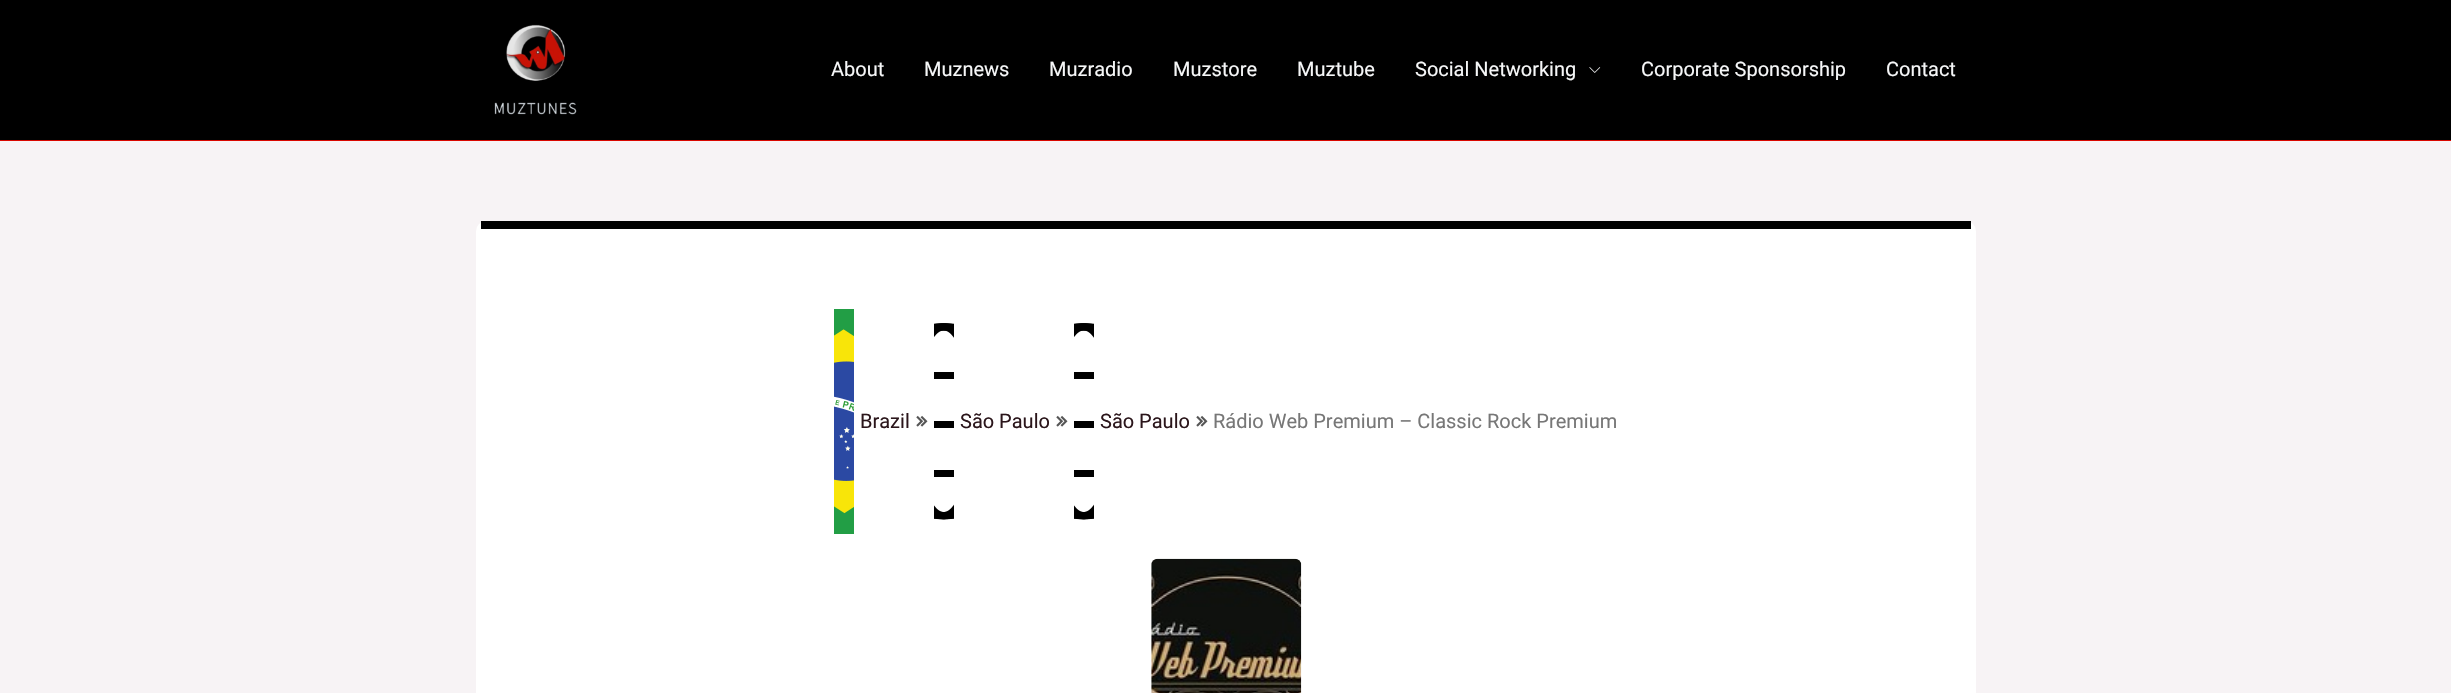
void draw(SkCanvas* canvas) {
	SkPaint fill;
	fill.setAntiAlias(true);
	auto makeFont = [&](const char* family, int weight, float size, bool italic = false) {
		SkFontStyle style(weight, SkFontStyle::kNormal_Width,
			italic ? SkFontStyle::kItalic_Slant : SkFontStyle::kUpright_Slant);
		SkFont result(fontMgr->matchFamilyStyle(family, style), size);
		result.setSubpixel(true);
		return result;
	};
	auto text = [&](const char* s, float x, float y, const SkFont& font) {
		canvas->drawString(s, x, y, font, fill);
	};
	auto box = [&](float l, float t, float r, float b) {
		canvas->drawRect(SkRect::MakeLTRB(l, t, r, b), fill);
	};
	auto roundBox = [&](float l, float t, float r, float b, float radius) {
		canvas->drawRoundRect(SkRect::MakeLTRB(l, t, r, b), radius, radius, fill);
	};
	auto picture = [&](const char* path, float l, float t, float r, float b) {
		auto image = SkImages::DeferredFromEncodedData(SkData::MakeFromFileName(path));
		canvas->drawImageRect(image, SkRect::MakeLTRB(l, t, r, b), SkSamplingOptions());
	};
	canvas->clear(0xFFF7F3F5);
	fill.setColor(0xFF000000);
	box(0, 0, 2451, 140);
	fill.setColor(0xFFD90700);
	box(0, 140, 2451, 141);
	picture("image0.png", 494, 24, 577, 115);
	picture("image1.png", 1589, 67, 1601, 73);
	fill.setColor(0xFFFFFFFF);
	roundBox(476, 221, 1976, 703, 10);
	fill.setColor(0xFF000000);
	box(481, 221, 1971, 229);
	picture("image2.png", 834, 309, 854, 534);
	picture("image3.png", 916, 415, 928, 427);
	picture("image4.png", 934, 323, 954, 520);
	picture("image3.png", 1056, 415, 1068, 427);
	picture("image4.png", 1074, 323, 1094, 520);
	picture("image3.png", 1196, 415, 1208, 427);
	picture("image5.png", 1151, 558, 1302, 693);
	auto font1 = makeFont("Roboto", 400, 20);
	fill.setColor(0xFFF6F7F8);
	text("About", 831, 76, font1);
	text("Muznews", 924, 76, font1);
	text("Muzradio", 1049, 76, font1);
	text("Muzstore", 1173, 76, font1);
	text("Muztube", 1297, 76, font1);
	text("Social Networking", 1415, 76, font1);
	text("Corporate Sponsorship", 1641, 76, font1);
	text("Contact", 1886, 76, font1);
	fill.setColor(0xFF2B161B);
	text("Brazil", 860, 428, font1);
	text("São Paulo", 960, 428, font1);
	text("São Paulo", 1100, 428, font1);
	fill.setColor(0xFF777777);
	text("Rádio Web Premium – Classic Rock Premium", 1213, 428, font1);
}
